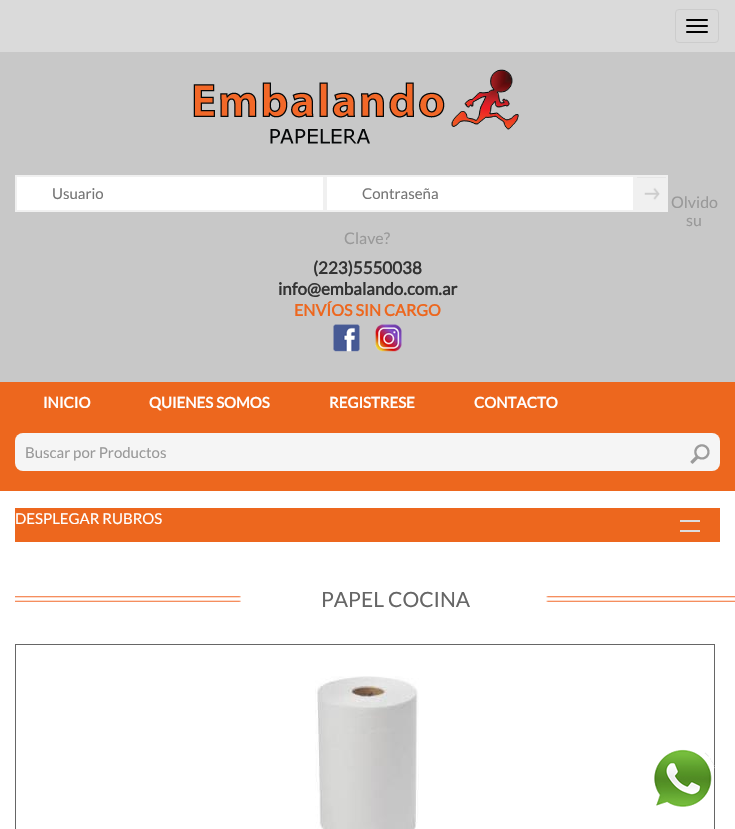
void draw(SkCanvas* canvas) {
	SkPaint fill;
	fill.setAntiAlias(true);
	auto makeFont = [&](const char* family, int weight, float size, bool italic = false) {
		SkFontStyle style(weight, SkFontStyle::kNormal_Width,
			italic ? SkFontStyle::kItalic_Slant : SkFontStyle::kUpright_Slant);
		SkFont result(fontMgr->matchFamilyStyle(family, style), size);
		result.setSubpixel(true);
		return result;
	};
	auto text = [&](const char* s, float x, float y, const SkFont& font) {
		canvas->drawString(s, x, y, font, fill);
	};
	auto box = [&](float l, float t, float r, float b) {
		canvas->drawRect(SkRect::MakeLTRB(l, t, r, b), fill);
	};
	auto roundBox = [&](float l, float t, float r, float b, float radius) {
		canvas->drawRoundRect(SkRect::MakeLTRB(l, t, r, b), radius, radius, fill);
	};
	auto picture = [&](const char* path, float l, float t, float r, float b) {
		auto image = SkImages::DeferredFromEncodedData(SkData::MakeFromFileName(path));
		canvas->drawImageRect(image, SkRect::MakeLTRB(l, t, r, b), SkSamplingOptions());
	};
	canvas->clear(0xFFFFFFFF);
	fill.setColor(0xFFDADADA);
	box(0, 0, 735, 52);
	fill.setStyle(SkPaint::kStroke_Style);
	fill.setStrokeWidth(1);
	fill.setColor(0xFFCCCCCC);
	canvas->drawRoundRect(SkRect::MakeLTRB(675.5f, 9.5f, 718.5f, 42.5f), 3.5f, 3.5f, fill);
	fill.setStyle(SkPaint::kFill_Style);
	fill.setColor(0xFF000000);
	roundBox(686, 19, 708, 21, 1);
	roundBox(686, 25, 708, 27, 1);
	roundBox(686, 31, 708, 33, 1);
	fill.setColor(0xFFC8C8C8);
	box(0, 52, 735, 382);
	picture("image0.png", 193, 69, 519, 144);
	fill.setColor(0xFFFFFFFF);
	canvas->drawRect(SkRect::MakeLTRB(16, 176, 324, 211), fill);
	fill.setStyle(SkPaint::kStroke_Style);
	fill.setStrokeWidth(2);
	fill.setColor(0xFFF0F0F0);
	canvas->drawRect(SkRect::MakeLTRB(16, 176, 324, 211), fill);
	fill.setStyle(SkPaint::kFill_Style);
	fill.setColor(0xFFFFFFFF);
	canvas->drawRect(SkRect::MakeLTRB(326, 176, 634, 211), fill);
	fill.setStyle(SkPaint::kStroke_Style);
	fill.setColor(0xFFF0F0F0);
	canvas->drawRect(SkRect::MakeLTRB(326, 176, 634, 211), fill);
	canvas->drawRect(SkRect::MakeLTRB(636, 176, 667, 211), fill);
	picture("image1.png", 637, 177, 666, 210);
	picture("image2.png", 333, 324, 360, 352);
	picture("image3.png", 375, 324, 402, 352);
	fill.setStyle(SkPaint::kFill_Style);
	fill.setColor(0xFFED671E);
	box(0, 382, 735, 491);
	fill.setColor(0xFFF5F5F5);
	roundBox(15, 433, 720, 471, 8);
	picture("image4.png", 690, 444, 710, 464);
	fill.setColor(0xFFED671E);
	box(15, 508, 720, 542);
	fill.setColor(0xFFDDDDDD);
	box(680, 520, 700, 522);
	box(680, 530, 700, 532);
	picture("image5.png", 15, 596, 735, 602);
	fill.setColor(0xFF666666);
	box(15, 644, 715, 645);
	box(714, 644, 715, 829);
	box(15, 644, 16, 829);
	picture("image6.png", 315, 676, 419, 829);
	picture("image7.png", 654, 749, 715, 807);
	auto font1 = makeFont("Lato", 400, 15);
	fill.setColor(0xFF757575);
	text("Usuario", 52, 199, font1);
	text("Contraseña", 362, 199, font1);
	auto font2 = makeFont("Lato", 400, 16);
	fill.setColor(0xFF999999);
	text("Olvido", 671, 208, font2);
	text("su", 686, 226, font2);
	text("Clave?", 344, 244, font2);
	auto font3 = makeFont("Lato", 700, 17);
	fill.setColor(0xFF333333);
	text("(223)5550038", 313, 274, font3);
	text("info@embalando.com.ar", 278, 295, font3);
	auto font4 = makeFont("Lato", 700, 16);
	fill.setColor(0xFFED671E);
	text("ENVÍOS SIN CARGO", 294, 316, font4);
	auto font5 = makeFont("Lato", 700, 15);
	fill.setColor(0xFFFFFFFF);
	text("INICIO", 43, 408, font5);
	text("QUIENES SOMOS", 149, 408, font5);
	text("REGISTRESE", 329, 408, font5);
	text("CONTACTO", 474, 408, font5);
	fill.setColor(0xFF999999);
	text("Buscar por Productos", 25, 458, font1);
	fill.setColor(0xFFFFFFFF);
	text("DESPLEGAR RUBROS", 15, 524, font1);
	auto font6 = makeFont("Lato", 400, 21);
	fill.setColor(0xFF666666);
	text("PAPEL COCINA", 321, 607, font6);
}
